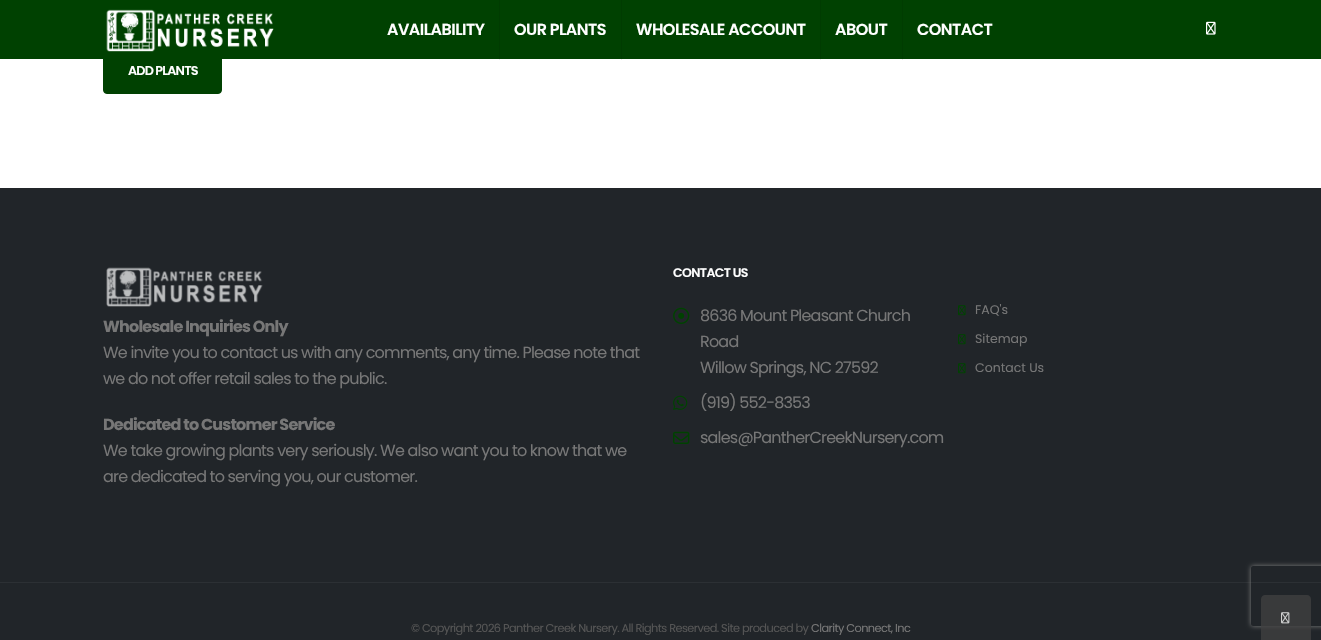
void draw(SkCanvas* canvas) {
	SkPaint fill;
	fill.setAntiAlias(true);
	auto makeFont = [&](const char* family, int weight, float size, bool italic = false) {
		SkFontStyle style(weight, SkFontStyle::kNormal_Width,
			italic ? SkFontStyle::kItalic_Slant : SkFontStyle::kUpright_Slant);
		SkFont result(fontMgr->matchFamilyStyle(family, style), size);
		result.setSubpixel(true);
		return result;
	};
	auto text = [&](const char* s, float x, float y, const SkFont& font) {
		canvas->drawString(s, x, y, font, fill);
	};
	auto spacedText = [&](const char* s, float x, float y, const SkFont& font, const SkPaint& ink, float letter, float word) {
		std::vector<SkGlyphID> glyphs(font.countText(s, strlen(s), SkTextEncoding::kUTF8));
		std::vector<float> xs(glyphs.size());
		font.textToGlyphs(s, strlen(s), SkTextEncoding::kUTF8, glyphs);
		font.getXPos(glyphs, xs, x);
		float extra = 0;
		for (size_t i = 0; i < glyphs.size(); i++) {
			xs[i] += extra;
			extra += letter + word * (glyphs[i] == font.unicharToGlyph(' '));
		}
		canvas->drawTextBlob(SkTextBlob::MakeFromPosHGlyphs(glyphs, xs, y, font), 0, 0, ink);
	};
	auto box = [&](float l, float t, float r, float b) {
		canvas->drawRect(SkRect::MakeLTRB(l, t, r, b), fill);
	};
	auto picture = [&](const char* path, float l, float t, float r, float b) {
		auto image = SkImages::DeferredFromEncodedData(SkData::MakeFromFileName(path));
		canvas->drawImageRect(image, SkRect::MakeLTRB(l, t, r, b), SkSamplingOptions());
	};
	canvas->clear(0xFFFFFFFF);
	fill.setColor(0xFFEDEDED);
	box(902, 59, 903, 60);
	box(820, 59, 821, 60);
	box(621, 59, 622, 60);
	box(499, 59, 500, 60);
	fill.setColor(0xFF004101);
	canvas->drawRoundRect(SkRect::MakeLTRB(103.5f, 47.5f, 221.5f, 93.5f), 3.5f, 3.5f, fill);
	fill.setStyle(SkPaint::kStroke_Style);
	fill.setStrokeWidth(1);
	canvas->drawRoundRect(SkRect::MakeLTRB(103.5f, 47.5f, 221.5f, 93.5f), 3.5f, 3.5f, fill);
	fill.setStyle(SkPaint::kFill_Style);
	box(0, 0, 1321, 59);
	picture("image0.png", 106, 9, 274, 52);
	fill.setColor(0xFF003C01);
	box(902, 0, 903, 59);
	box(820, 0, 821, 59);
	box(621, 0, 622, 59);
	box(499, 0, 500, 59);
	picture("image1.png", 1206, 21, 1216, 35);
	fill.setColor(0xFF212529);
	box(0, 188, 1321, 640);
	picture("image2.png", 106, 267, 263, 307);
	picture("image3.png", 673, 307, 690, 324);
	picture("image4.png", 673, 395, 688, 410);
	picture("image5.png", 673, 431, 690, 444);
	picture("image6.png", 958, 305, 966, 316);
	picture("image6.png", 958, 334, 966, 345);
	picture("image6.png", 958, 363, 966, 374);
	fill.setColor(0xFF2C3034);
	box(0, 582, 1321, 583);
	canvas->save();
	canvas->clipPath(SkPathBuilder(SkPathFillType::kEvenOdd).moveTo(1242, 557).lineTo(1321, 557).lineTo(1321, 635).lineTo(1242, 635).close().moveTo(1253, 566).lineTo(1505, 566).cubicTo(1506, 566, 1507, 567, 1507, 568).lineTo(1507, 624).cubicTo(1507, 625, 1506, 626, 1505, 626).lineTo(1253, 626).cubicTo(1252, 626, 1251, 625, 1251, 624).lineTo(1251, 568).cubicTo(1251, 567, 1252, 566, 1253, 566).close().detach(), true);
	fill.setColor(0xFF808080);
	fill.setMaskFilter(SkMaskFilter::MakeBlur(kNormal_SkBlurStyle, 2.5f));
	canvas->drawRoundRect(SkRect::MakeLTRB(1251, 566, 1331, 626), 2, 2, fill);
	fill.setMaskFilter(nullptr);
	canvas->restore();
	fill.setColor(0xBF404040);
	canvas->drawPath(SkPathBuilder().moveTo(1265, 595).lineTo(1307, 595).cubicTo(1309, 595, 1311, 597, 1311, 599).lineTo(1311, 640).lineTo(1261, 640).lineTo(1261, 599).cubicTo(1261, 597, 1263, 595, 1265, 595).close().detach(), fill);
	picture("image7.png", 1281, 612, 1290, 624);
	auto font1 = makeFont("Poppins", 600, 16);
	fill.setColor(0xFFFFFFFF);
	spacedText("AVAILABILITY", 387, 35, font1, fill, -0.5f, 0);
	spacedText("OUR PLANTS", 514, 35, font1, fill, -0.5f, 0);
	spacedText("WHOLESALE ACCOUNT", 636, 35, font1, fill, -0.5f, 0);
	spacedText("ABOUT", 835, 35, font1, fill, -0.5f, 0);
	spacedText("CONTACT", 917, 35, font1, fill, -0.5f, 0);
	auto font2 = makeFont("Poppins", 600, 12.75f);
	spacedText("ADD PLANTS", 128, 75, font2, fill, -0.8f, 0);
	auto font3 = makeFont("Poppins", 700, 16);
	fill.setColor(0xFF777777);
	spacedText("Wholesale Inquiries Only", 103, 332, font3, fill, -0.8f, 0);
	auto font4 = makeFont("Poppins", 400, 16);
	spacedText("We invite you to contact us with any comments, any time. Please note that", 103, 358, font4, fill, -0.8f, 0);
	spacedText("we do not offer retail sales to the public.", 103, 384, font4, fill, -0.8f, 0);
	spacedText("Dedicated to Customer Service", 103, 430, font3, fill, -0.8f, 0);
	spacedText("We take growing plants very seriously. We also want you to know that we", 103, 456, font4, fill, -0.8f, 0);
	spacedText("are dedicated to serving you, our customer.", 103, 482, font4, fill, -0.8f, 0);
	auto font5 = makeFont("Poppins", 600, 12.5f);
	fill.setColor(0xFFFFFFFF);
	spacedText("CONTACT US", 673, 277, font5, fill, -0.6f, 0);
	fill.setColor(0xFF777777);
	spacedText("8636 Mount Pleasant Church", 700, 321, font4, fill, -0.8f, 0);
	spacedText("Road", 700, 347, font4, fill, -0.8f, 0);
	spacedText("Willow Springs, NC 27592", 700, 373, font4, fill, -0.8f, 0);
	spacedText("(919) 552-8353", 700, 408, font4, fill, -0.8f, 0);
	spacedText("sales@PantherCreekNursery.com", 700, 443, font4, fill, -0.8f, 0);
	auto font6 = makeFont("Poppins", 400, 12.5f);
	text("FAQ's", 975, 314, font6);
	text("Sitemap", 975, 343, font6);
	text("Contact Us", 975, 372, font6);
	auto font7 = makeFont("Poppins", 400, 11.35f);
	fill.setColor(0xFF555555);
	spacedText("© Copyright 2026 Panther Creek Nursery. All Rights Reserved. Site produced by", 411, 632, font7, fill, -0.57f, 0);
	fill.setColor(0xFF777777);
	spacedText("Clarity Connect, Inc", 811, 632, font7, fill, -0.57f, 0);
}
